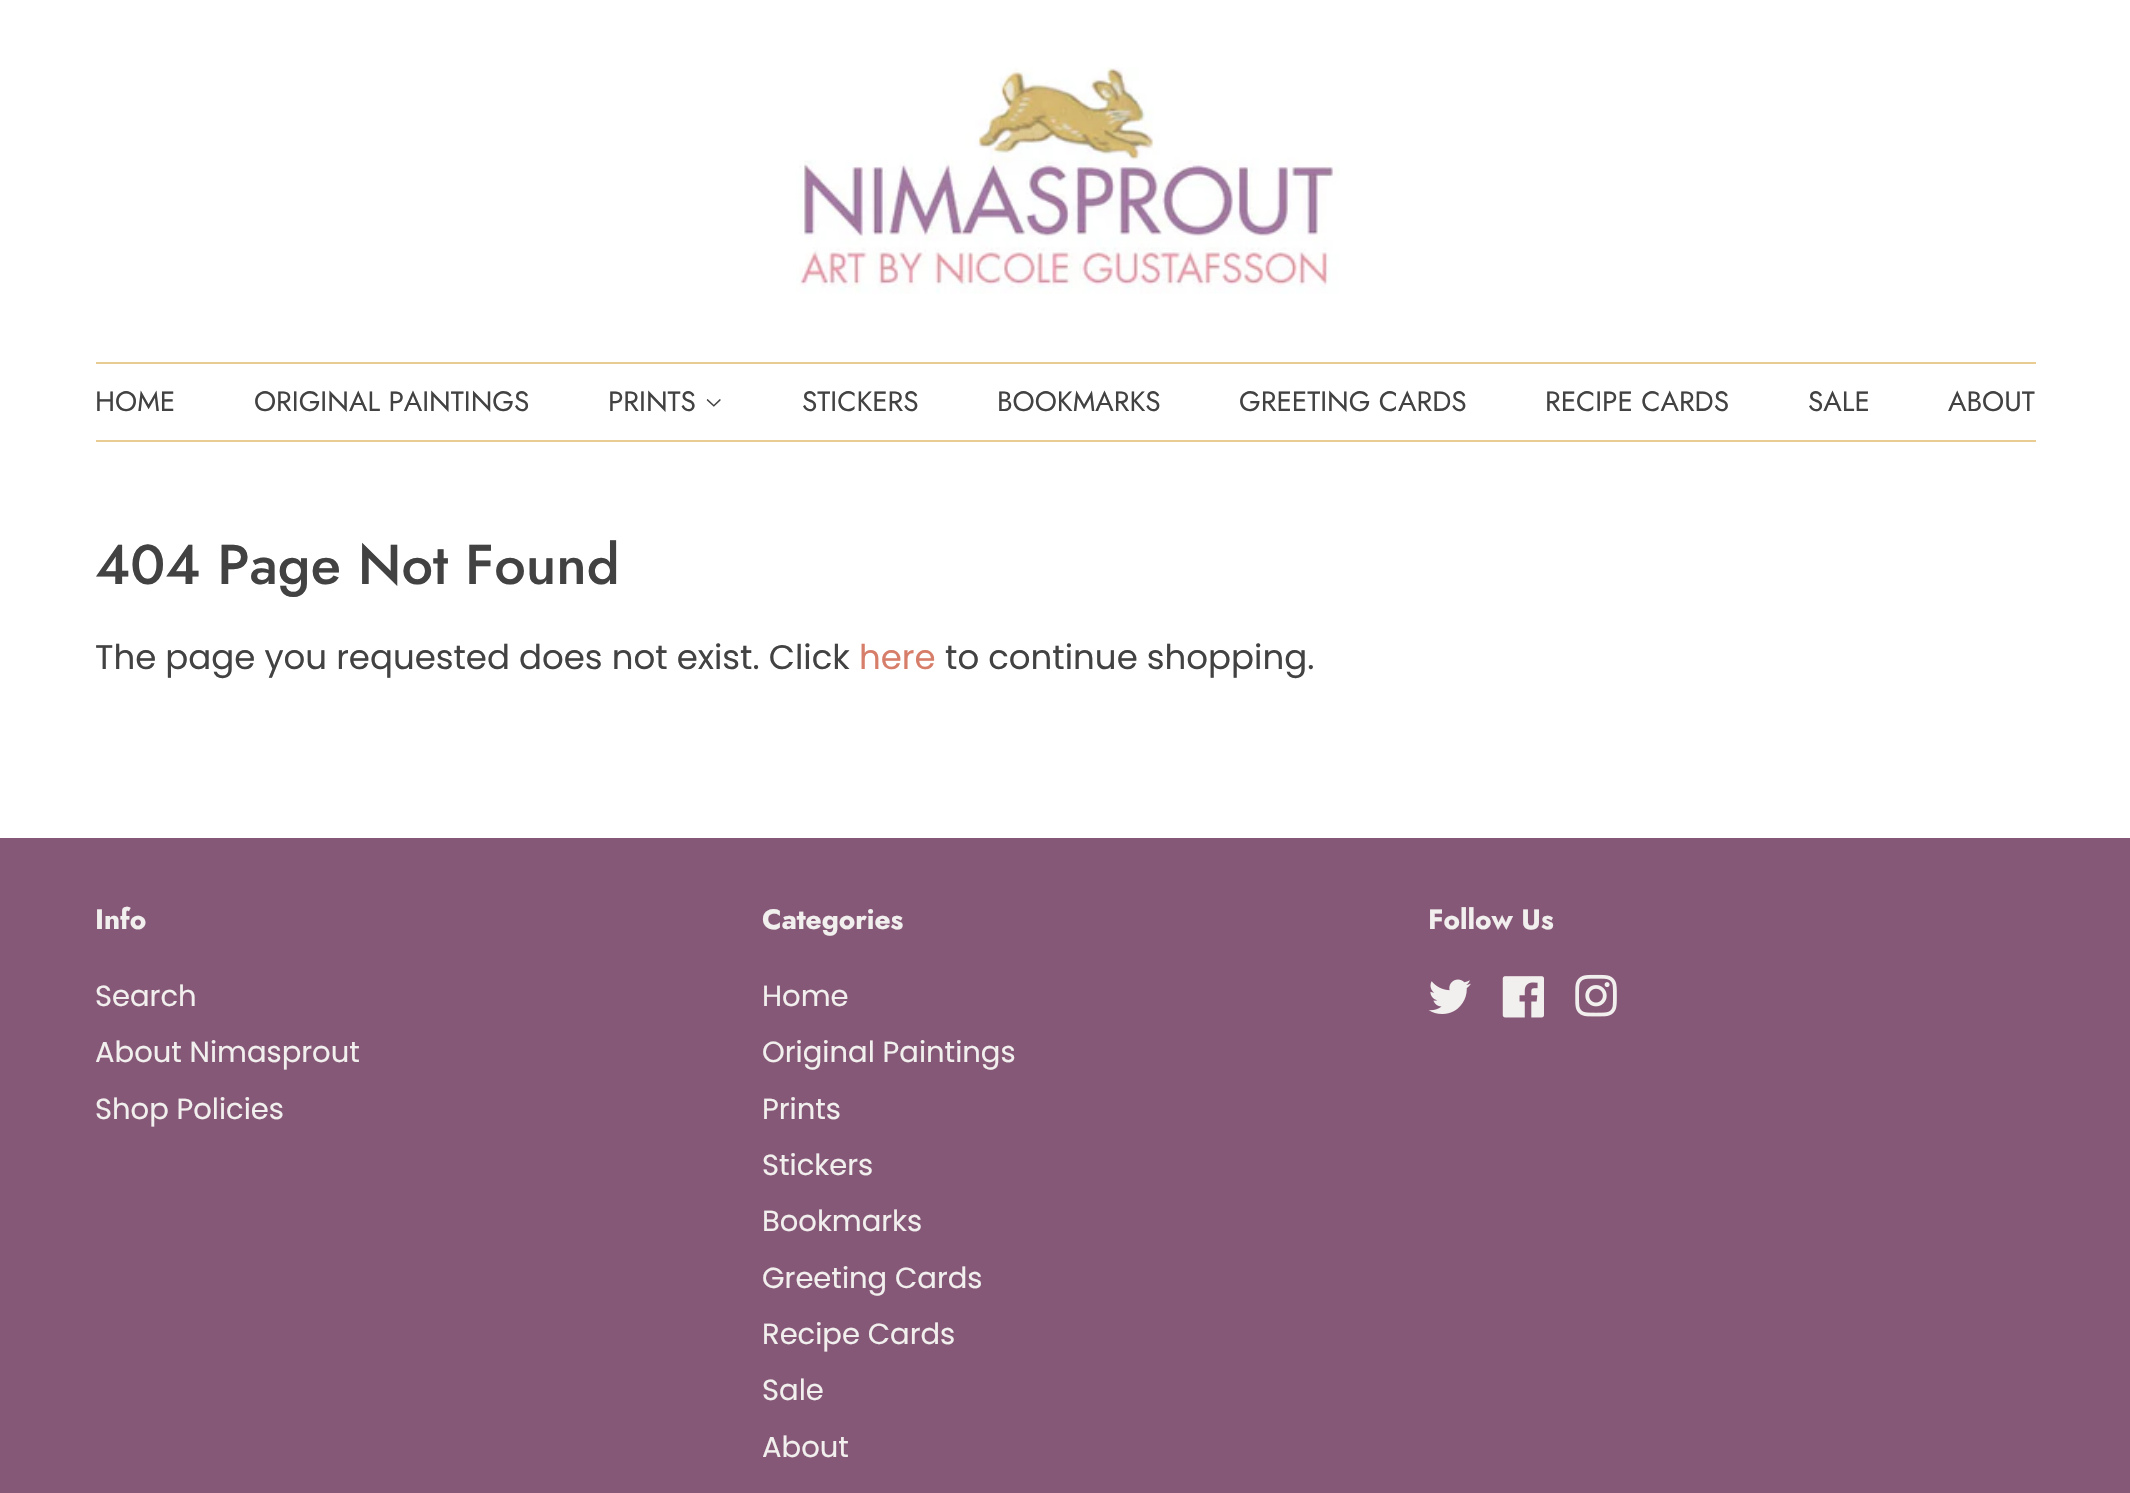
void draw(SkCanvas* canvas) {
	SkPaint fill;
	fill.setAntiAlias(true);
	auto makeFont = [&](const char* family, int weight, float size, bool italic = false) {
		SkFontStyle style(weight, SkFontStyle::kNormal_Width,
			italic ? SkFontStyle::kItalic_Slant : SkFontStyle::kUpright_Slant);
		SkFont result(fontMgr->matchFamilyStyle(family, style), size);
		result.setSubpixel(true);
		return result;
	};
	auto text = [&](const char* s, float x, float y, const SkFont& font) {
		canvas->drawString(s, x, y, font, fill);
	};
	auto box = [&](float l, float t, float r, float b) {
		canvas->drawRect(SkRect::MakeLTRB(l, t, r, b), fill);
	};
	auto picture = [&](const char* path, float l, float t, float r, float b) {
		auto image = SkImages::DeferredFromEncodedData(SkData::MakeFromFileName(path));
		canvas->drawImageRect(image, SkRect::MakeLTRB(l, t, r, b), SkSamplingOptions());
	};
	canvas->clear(0xFFFFFFFF);
	picture("image0.png", 796, 67, 1340, 294);
	fill.setColor(0xFFE9CC91);
	box(96, 362, 2036, 364);
	box(96, 440, 2036, 442);
	picture("image1.png", 706, 399, 721, 407);
	fill.setColor(0xFF865877);
	box(0, 838, 2130, 1493);
	picture("image2.png", 1428, 979, 1471, 1014);
	picture("image3.png", 1502, 976, 1544, 1018);
	picture("image4.png", 1575, 974, 1617, 1017);
	auto font1 = makeFont("Jost", 400, 28);
	fill.setColor(0xFF424242);
	text("HOME", 95, 411, font1);
	text("ORIGINAL PAINTINGS", 254, 411, font1);
	text("PRINTS", 608, 411, font1);
	text("STICKERS", 802, 411, font1);
	text("BOOKMARKS", 997, 411, font1);
	text("GREETING CARDS", 1239, 411, font1);
	text("RECIPE CARDS", 1545, 411, font1);
	text("SALE", 1808, 411, font1);
	text("ABOUT", 1948, 411, font1);
	auto font2 = makeFont("Jost", 500, 56);
	text("404 Page Not Found", 95, 584, font2);
	auto font3 = makeFont("Poppins", 400, 34);
	text("The page you requested does not exist. Click", 95, 669, font3);
	fill.setColor(0xFFD77E6A);
	text("here", 859, 669, font3);
	fill.setColor(0xFF424242);
	text("to continue shopping.", 945, 669, font3);
	auto font4 = makeFont("Jost", 700, 28);
	fill.setColor(0xFFF2F0EE);
	text("Info", 95, 929, font4);
	auto font5 = makeFont("Poppins", 400, 29);
	text("Search", 95, 1006, font5);
	text("About Nimasprout", 95, 1062, font5);
	text("Shop Policies", 95, 1119, font5);
	text("Categories", 762, 929, font4);
	text("Home", 762, 1006, font5);
	text("Original Paintings", 762, 1062, font5);
	text("Prints", 762, 1119, font5);
	text("Stickers", 762, 1175, font5);
	text("Bookmarks", 762, 1231, font5);
	text("Greeting Cards", 762, 1288, font5);
	text("Recipe Cards", 762, 1344, font5);
	text("Sale", 762, 1400, font5);
	text("About", 762, 1457, font5);
	text("Follow Us", 1428, 929, font4);
}
